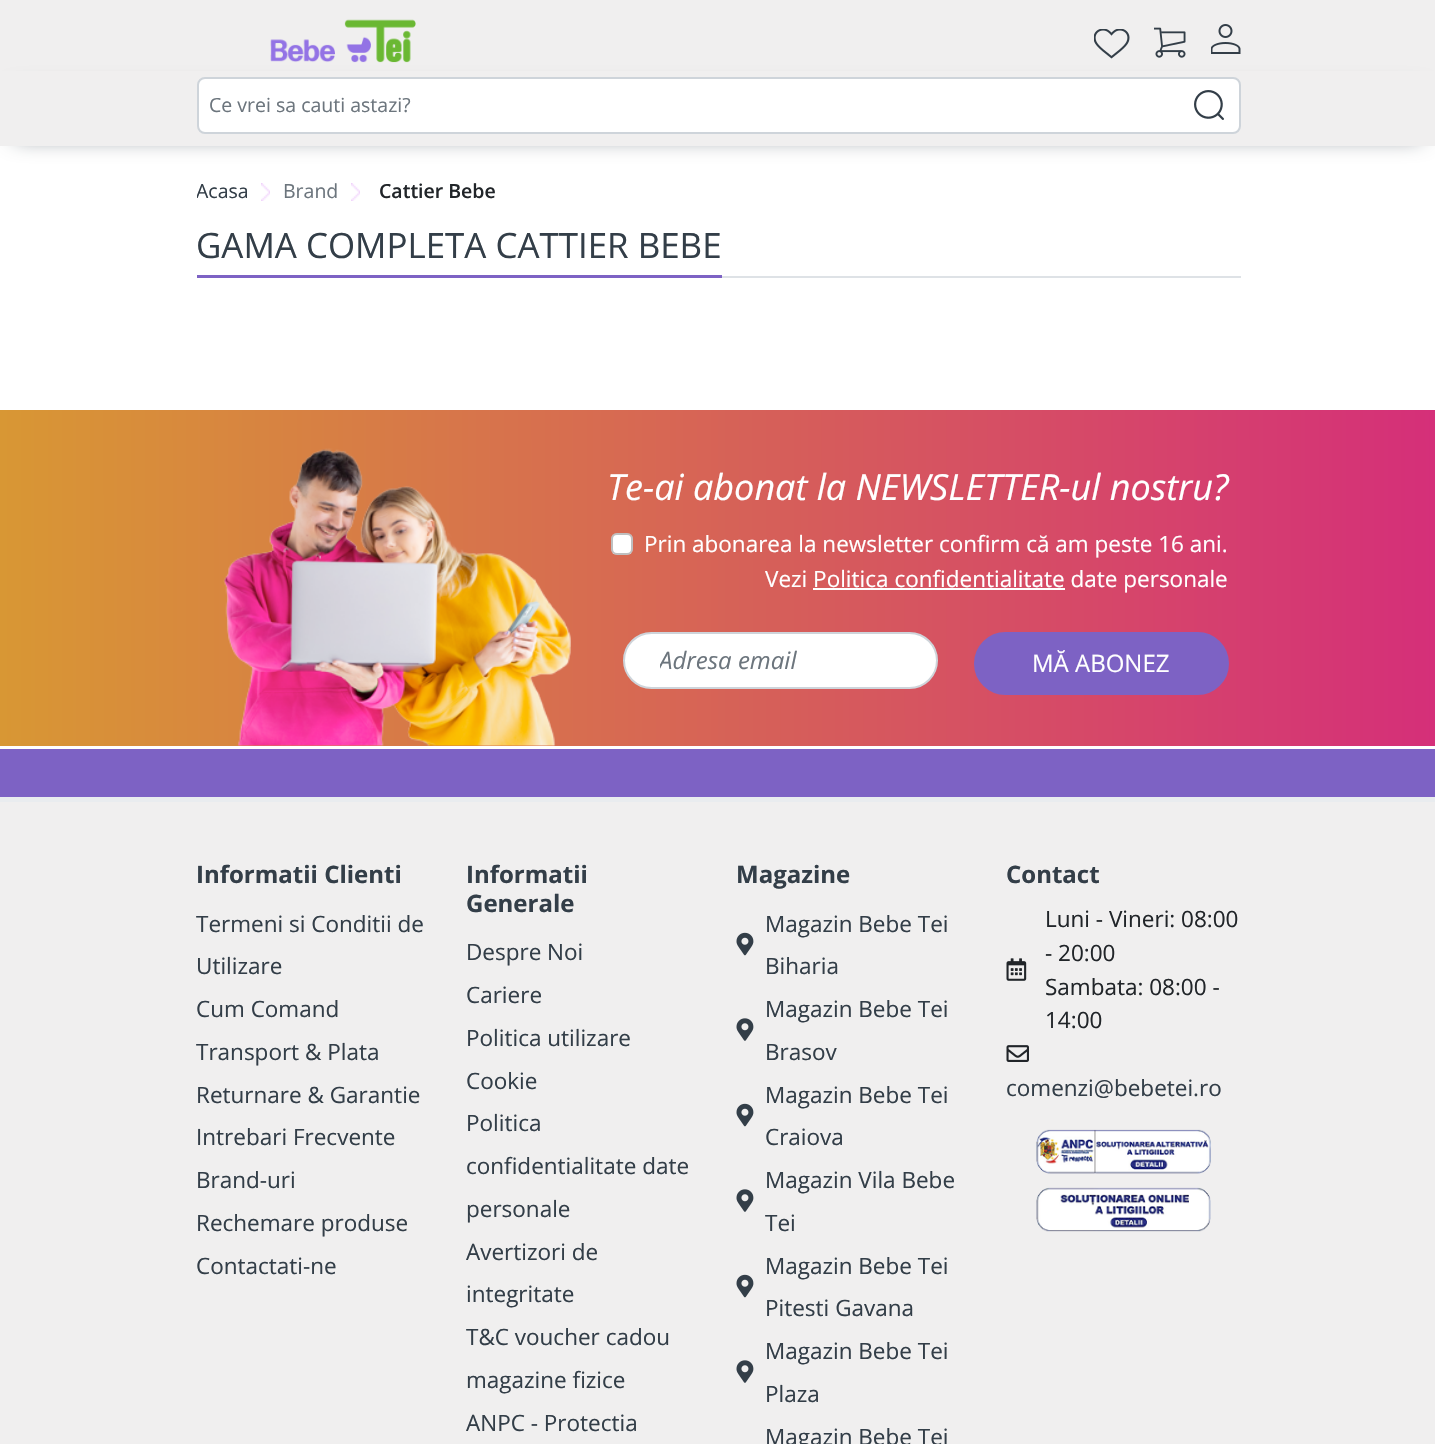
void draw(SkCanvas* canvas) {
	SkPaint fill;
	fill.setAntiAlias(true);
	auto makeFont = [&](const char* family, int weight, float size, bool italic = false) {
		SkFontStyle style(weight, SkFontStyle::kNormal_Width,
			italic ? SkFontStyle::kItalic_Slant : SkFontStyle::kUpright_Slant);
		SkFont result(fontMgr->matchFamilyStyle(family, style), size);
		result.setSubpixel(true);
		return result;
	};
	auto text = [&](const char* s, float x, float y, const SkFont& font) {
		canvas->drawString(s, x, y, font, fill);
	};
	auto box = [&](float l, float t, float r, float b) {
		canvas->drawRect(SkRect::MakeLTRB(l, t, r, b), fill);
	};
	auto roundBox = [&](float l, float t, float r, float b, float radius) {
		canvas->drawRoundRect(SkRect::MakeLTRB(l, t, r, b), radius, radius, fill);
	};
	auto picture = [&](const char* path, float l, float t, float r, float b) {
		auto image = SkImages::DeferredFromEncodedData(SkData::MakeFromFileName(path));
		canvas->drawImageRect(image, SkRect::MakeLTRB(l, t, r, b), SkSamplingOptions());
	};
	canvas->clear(0xFFFFFFFF);
	fill.setColor(0xFFF0EFEF);
	box(0, 0, 1435, 71);
	fill.setColor(0xFF6C757D);
	fill.setMaskFilter(SkMaskFilter::MakeBlur(kNormal_SkBlurStyle, 11));
	canvas->drawRect(SkRect::MakeLTRB(15, 92, 1421, 137), fill);
	fill.setMaskFilter(nullptr);
	picture("image0.png", 270, 19, 416, 63);
	picture("image1.png", 1094, 29, 1130, 59);
	picture("image2.png", 1154, 27, 1186, 58);
	picture("image3.png", 1211, 24, 1241, 54);
	fill.setColor(0xFFF0EFEF);
	box(0, 71, 1435, 146);
	fill.setColor(0xFFFFFFFF);
	canvas->drawRoundRect(SkRect::MakeLTRB(198, 78, 1240, 133), 7, 7, fill);
	fill.setStyle(SkPaint::kStroke_Style);
	fill.setStrokeWidth(2);
	fill.setColor(0xFFCED4DA);
	canvas->drawRoundRect(SkRect::MakeLTRB(198, 78, 1240, 133), 7, 7, fill);
	picture("image4.png", 1194, 90, 1224, 120);
	picture("image5.png", 261, 183, 270, 201);
	picture("image5.png", 351, 183, 360, 201);
	fill.setStyle(SkPaint::kFill_Style);
	fill.setColor(0xFFDEE2E6);
	box(722, 276, 1241, 278);
	fill.setColor(0xFF7D62C4);
	box(197, 275, 722, 278);
	{
		const SkColor colors[] = {0xFFD89734, 0xFFD52F79};
		const float stops[] = {0, 1};
		const SkPoint ends[] = {{0, 578}, {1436, 577}};
		fill.setShader(SkGradientShader::MakeLinear(ends, colors, stops, 2, SkTileMode::kClamp));
		fill.setAlpha(255);
	}
	box(0, 410, 1435, 746);
	picture("image6.png", 223, 448, 571, 746);
	fill.setShader(nullptr);
	fill.setColor(0xFFFFFFFF);
	roundBox(611, 533, 633, 555, 6);
	fill.setStyle(SkPaint::kStroke_Style);
	fill.setColor(0x40000000);
	canvas->drawRoundRect(SkRect::MakeLTRB(612, 534, 632, 554), 5, 5, fill);
	fill.setStyle(SkPaint::kFill_Style);
	fill.setColor(0xFFFFFFFF);
	box(813, 588, 1065, 590);
	canvas->drawRoundRect(SkRect::MakeLTRB(624, 633, 937, 688), 27.5f, 27.5f, fill);
	fill.setStyle(SkPaint::kStroke_Style);
	fill.setColor(0xFFCED4DA);
	canvas->drawRoundRect(SkRect::MakeLTRB(624, 633, 937, 688), 27.5f, 27.5f, fill);
	fill.setStyle(SkPaint::kFill_Style);
	fill.setColor(0xFF7D62C4);
	canvas->drawRoundRect(SkRect::MakeLTRB(975, 633, 1228, 694), 30.5f, 30.5f, fill);
	fill.setStyle(SkPaint::kStroke_Style);
	canvas->drawRoundRect(SkRect::MakeLTRB(975, 633, 1228, 694), 30.5f, 30.5f, fill);
	fill.setStyle(SkPaint::kFill_Style);
	box(0, 749, 1435, 797);
	fill.setColor(0xFFF0EFEF);
	box(0, 802, 1435, 1444);
	fill.setColor(0xFFE9ECEF);
	box(0, 797, 1435, 802);
	picture("image7.png", 736, 932, 754, 956);
	picture("image8.png", 736, 1018, 754, 1041);
	picture("image7.png", 736, 1103, 754, 1127);
	picture("image8.png", 736, 1189, 754, 1212);
	picture("image7.png", 736, 1274, 754, 1298);
	picture("image8.png", 736, 1360, 754, 1383);
	picture("image9.png", 1006, 958, 1027, 981);
	picture("image10.png", 1006, 1045, 1029, 1062);
	picture("image11.png", 1036, 1129, 1211, 1174);
	picture("image12.png", 1036, 1187, 1211, 1232);
	auto font1 = makeFont("Open Sans", 400, 19.5f);
	fill.setColor(0xFF6C757D);
	text("Ce vrei sa cauti astazi?", 209, 112, font1);
	canvas->save();
	canvas->clipRect(SkRect::MakeLTRB(197, 170, 1241, 213));
	fill.setColor(0xFF333E48);
	text("Acasa", 196, 198, font1);
	canvas->restore();
	fill.setColor(0xFF6C757D);
	text("Brand", 283, 198, font1);
	auto font2 = makeFont("Open Sans", 600, 19.5f);
	fill.setColor(0xFF212529);
	text("Cattier Bebe", 379, 198, font2);
	auto font3 = makeFont("Open Sans", 400, 34.9f);
	fill.setColor(0xFF333E48);
	text("GAMA COMPLETA CATTIER BEBE", 196, 258, font3);
	auto font4 = makeFont("Open Sans", 400, 36, true);
	fill.setColor(0xFFFFFFFF);
	text("Te-ai abonat la NEWSLETTER-ul nostru?", 607, 500, font4);
	auto font5 = makeFont("Open Sans", 400, 22.5f);
	text("Prin abonarea la newsletter confirm că am peste 16 ani.", 644, 552, font5);
	text("Vezi Politica confidentialitate date personale", 765, 587, font5);
	canvas->save();
	canvas->clipRect(SkRect::MakeLTRB(660, 644, 918, 677));
	auto font6 = makeFont("Open Sans", 400, 24, true);
	fill.setColor(0xFF6C757D);
	text("Adresa email", 659, 669, font6);
	canvas->restore();
	auto font7 = makeFont("Open Sans", 400, 24);
	fill.setColor(0xFFFFFFFF);
	text("MĂ ABONEZ", 1032, 672, font7);
	auto font8 = makeFont("Open Sans", 700, 24);
	fill.setColor(0xFF333E48);
	text("Informatii Clienti", 196, 883, font8);
	text("Termeni si Conditii de", 196, 932, font5);
	text("Utilizare", 196, 974, font5);
	text("Cum Comand", 196, 1017, font5);
	text("Transport & Plata", 196, 1060, font5);
	text("Returnare & Garantie", 196, 1103, font5);
	text("Intrebari Frecvente", 196, 1145, font5);
	text("Brand-uri", 196, 1188, font5);
	text("Rechemare produse", 196, 1231, font5);
	text("Contactati-ne", 196, 1274, font5);
	text("Informatii", 466, 883, font8);
	text("Generale", 466, 912, font8);
	text("Despre Noi", 466, 960, font5);
	text("Cariere", 466, 1003, font5);
	text("Politica utilizare", 466, 1046, font5);
	text("Cookie", 466, 1089, font5);
	text("Politica", 466, 1131, font5);
	text("confidentialitate date", 466, 1174, font5);
	text("personale", 466, 1217, font5);
	text("Avertizori de", 466, 1260, font5);
	text("integritate", 466, 1302, font5);
	text("T&C voucher cadou", 466, 1345, font5);
	text("magazine fizice", 466, 1388, font5);
	text("ANPC - Protectia", 466, 1431, font5);
	text("Magazine", 736, 883, font8);
	text("Magazin Bebe Tei", 765, 932, font5);
	text("Biharia", 765, 974, font5);
	text("Magazin Bebe Tei", 765, 1017, font5);
	text("Brasov", 765, 1060, font5);
	text("Magazin Bebe Tei", 765, 1103, font5);
	text("Craiova", 765, 1145, font5);
	text("Magazin Vila Bebe", 765, 1188, font5);
	text("Tei", 765, 1231, font5);
	text("Magazin Bebe Tei", 765, 1274, font5);
	text("Pitesti Gavana", 765, 1316, font5);
	text("Magazin Bebe Tei", 765, 1359, font5);
	text("Plaza", 765, 1402, font5);
	text("Magazin Bebe Tei", 765, 1445, font5);
	text("Contact", 1006, 883, font8);
	fill.setColor(0xFF212529);
	text("Luni - Vineri: 08:00", 1045, 927, font5);
	text("- 20:00", 1045, 961, font5);
	text("Sambata: 08:00 -", 1045, 995, font5);
	text("14:00", 1045, 1028, font5);
	fill.setColor(0xFF333E48);
	text("comenzi@bebetei.ro", 1006, 1096, font5);
}
